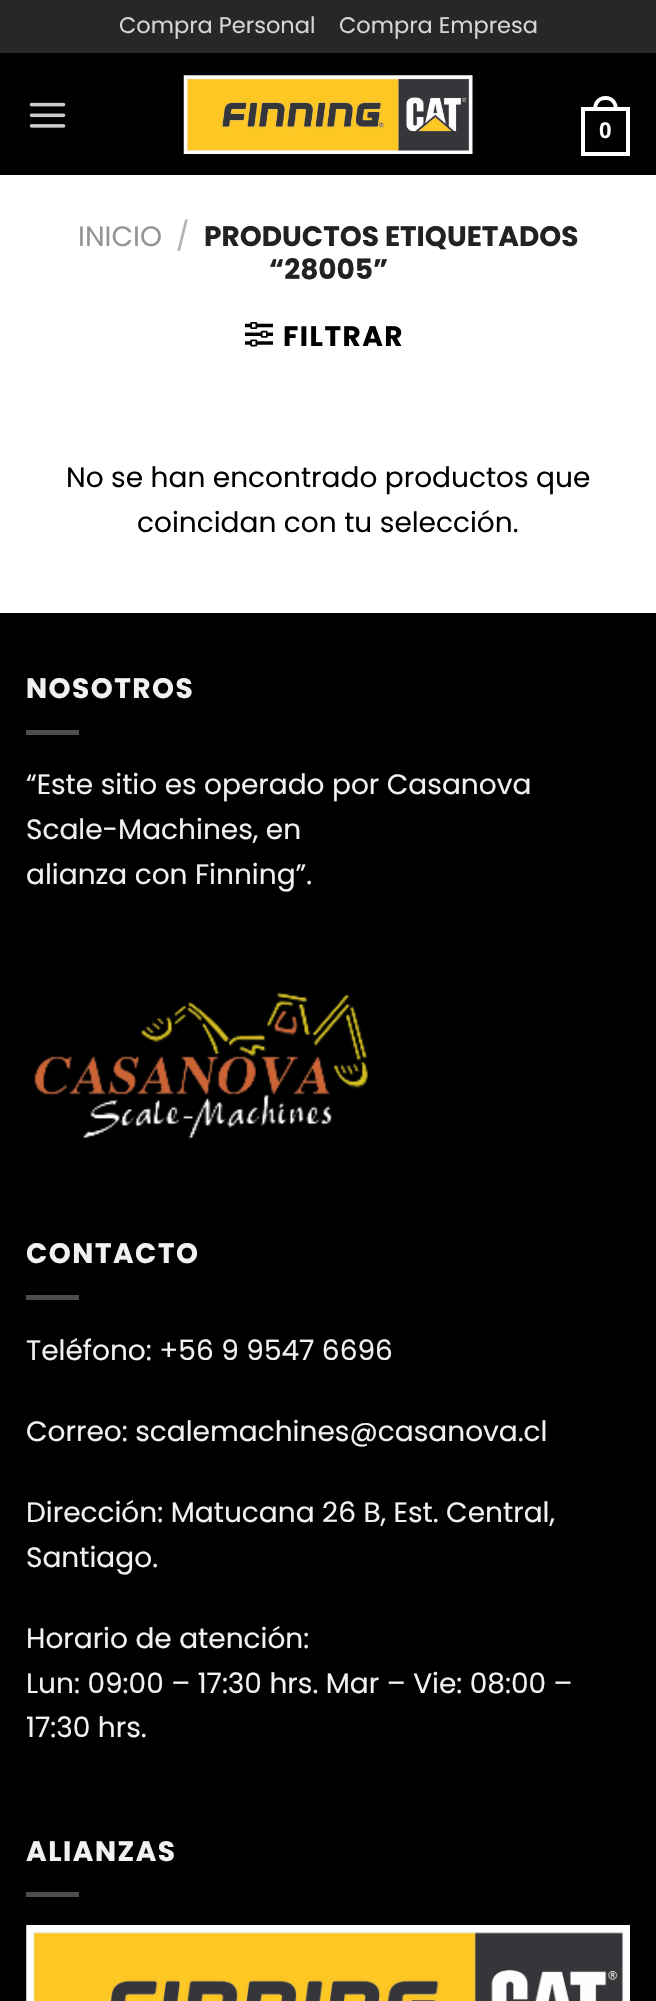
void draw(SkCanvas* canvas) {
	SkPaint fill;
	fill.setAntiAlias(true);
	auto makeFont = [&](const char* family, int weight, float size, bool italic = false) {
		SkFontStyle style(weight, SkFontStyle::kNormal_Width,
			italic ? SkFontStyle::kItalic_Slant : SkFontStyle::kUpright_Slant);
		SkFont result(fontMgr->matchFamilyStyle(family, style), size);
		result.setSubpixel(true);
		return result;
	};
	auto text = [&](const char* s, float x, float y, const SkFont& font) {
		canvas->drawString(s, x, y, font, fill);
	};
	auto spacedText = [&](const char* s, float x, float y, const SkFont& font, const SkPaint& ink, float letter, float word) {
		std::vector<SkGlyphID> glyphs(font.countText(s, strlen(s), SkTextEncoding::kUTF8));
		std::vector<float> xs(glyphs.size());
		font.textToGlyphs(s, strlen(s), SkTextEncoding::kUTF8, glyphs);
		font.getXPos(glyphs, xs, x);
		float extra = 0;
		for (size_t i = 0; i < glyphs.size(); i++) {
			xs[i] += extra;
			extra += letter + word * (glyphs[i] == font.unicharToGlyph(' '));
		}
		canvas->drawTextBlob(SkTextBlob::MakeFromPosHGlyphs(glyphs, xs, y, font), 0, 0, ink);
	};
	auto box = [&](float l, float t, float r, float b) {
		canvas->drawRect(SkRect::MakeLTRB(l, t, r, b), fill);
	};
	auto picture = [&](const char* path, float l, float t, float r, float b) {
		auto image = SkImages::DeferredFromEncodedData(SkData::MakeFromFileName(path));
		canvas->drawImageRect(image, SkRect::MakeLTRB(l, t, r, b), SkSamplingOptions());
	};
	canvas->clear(0xFFFFFFFF);
	fill.setColor(0xFF272727);
	box(0, 0, 656, 53);
	fill.setColor(0xFF000000);
	box(0, 53, 656, 175);
	picture("image0.png", 29, 102, 66, 128);
	picture("image1.png", 183, 75, 473, 154);
	fill.setStyle(SkPaint::kStroke_Style);
	fill.setStrokeWidth(4);
	fill.setColor(0xFFFFFFFF);
	canvas->drawRect(SkRect::MakeLTRB(583, 109, 628, 154), fill);
	fill.setStyle(SkPaint::kFill_Style);
	canvas->drawPath(SkPathBuilder(SkPathFillType::kEvenOdd).moveTo(605.5f, 96).cubicTo(614, 96, 618, 102.5f, 618, 110).lineTo(593, 110).cubicTo(593, 102.5f, 597, 96, 605.5f, 96).close().moveTo(605.5f, 100).cubicTo(612, 100, 614, 104.5f, 614, 110).lineTo(597, 110).cubicTo(597, 104.5f, 599, 100, 605.5f, 100).close().detach(), fill);
	picture("image2.png", 245, 322, 273, 347);
	fill.setColor(0xFF000000);
	box(0, 613, 656, 2001);
	fill.setColor(0xFF4D4D4D);
	box(26, 730, 79, 735);
	picture("image3.png", 34, 992, 368, 1140);
	box(26, 1295, 79, 1300);
	box(26, 1892, 79, 1897);
	picture("image4.png", 26, 1925, 630, 2001);
	auto font1 = makeFont("Poppins", 400, 22.5f);
	fill.setColor(0xFFD4D4D4);
	text("Compra Personal", 119, 33, font1);
	text("Compra Empresa", 339, 33, font1);
	auto font2 = makeFont("Liberation Sans", 700, 22.5f);
	fill.setColor(0xFFFFFFFF);
	text("0", 599, 138, font2);
	auto font3 = makeFont("Poppins", 400, 28);
	fill.setColor(0xFF949494);
	text("INICIO", 78, 246, font3);
	fill.setColor(0xFFB2B2B2);
	text("/", 176, 246, font3);
	auto font4 = makeFont("Poppins", 700, 28);
	fill.setColor(0xFF222222);
	text("PRODUCTOS ETIQUETADOS", 204, 246, font4);
	text("“28005”", 269, 279, font4);
	fill.setColor(0xFF000000);
	spacedText("FILTRAR", 283, 346, font4, fill, 1.5f, 0);
	text("No se han encontrado productos que", 66, 487, font3);
	text("coincidan con tu selección.", 137, 532, font3);
	fill.setColor(0xFFF1F1F1);
	spacedText("NOSOTROS", 26, 698, font4, fill, 1.5f, 0);
	text("“Este sitio es operado por Casanova", 26, 794, font3);
	text("Scale-Machines, en", 26, 839, font3);
	text("alianza con Finning”.", 26, 884, font3);
	spacedText("CONTACTO", 26, 1263, font4, fill, 1.5f, 0);
	text("Teléfono: +56 9 9547 6696", 26, 1360, font3);
	text("Correo: scalemachines@casanova.cl", 26, 1441, font3);
	text("Dirección: Matucana 26 B, Est. Central,", 26, 1522, font3);
	text("Santiago.", 26, 1567, font3);
	text("Horario de atención:", 26, 1648, font3);
	text("Lun: 09:00 – 17:30 hrs. Mar – Vie: 08:00 –", 26, 1693, font3);
	text("17:30 hrs.", 26, 1737, font3);
	spacedText("ALIANZAS", 26, 1861, font4, fill, 1.5f, 0);
}
